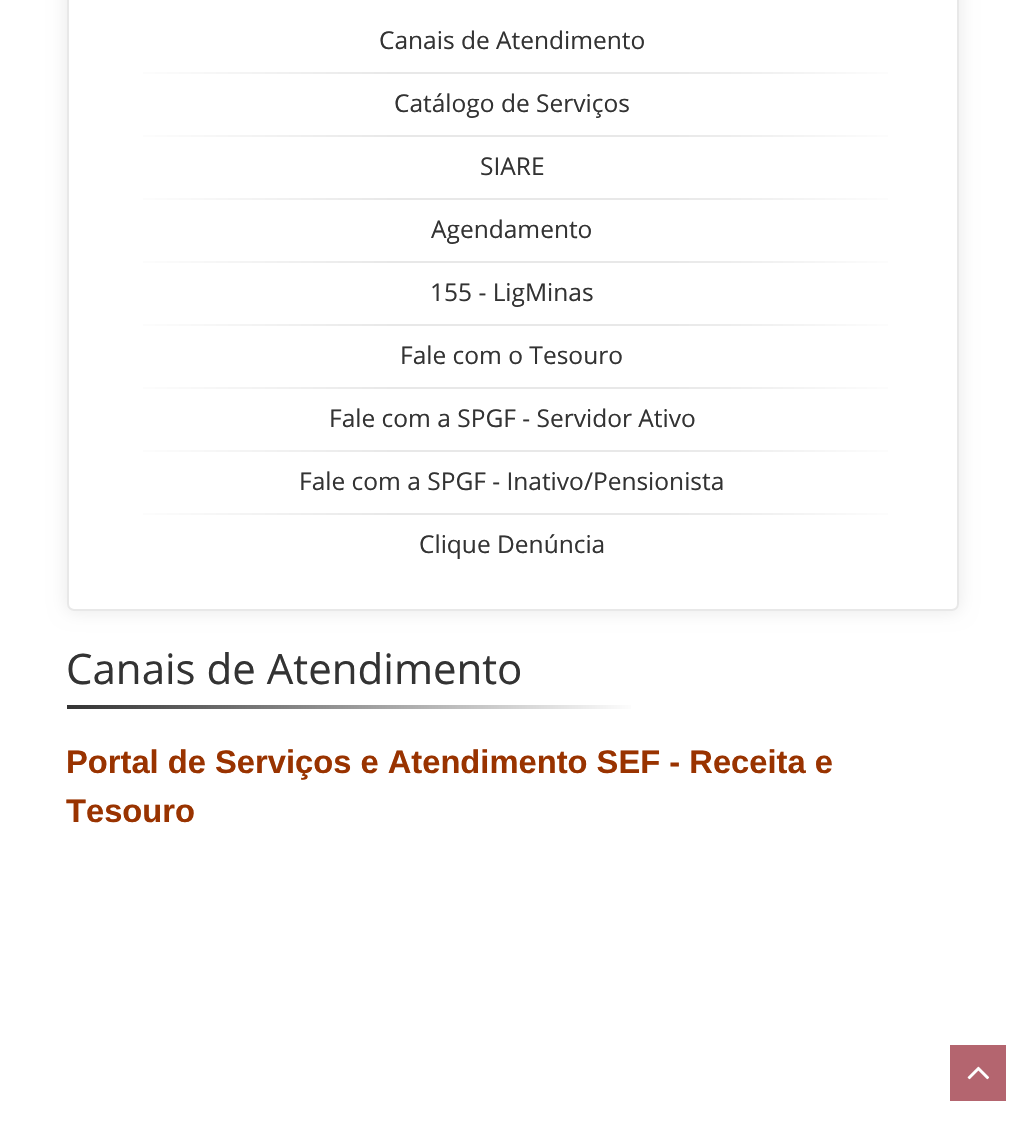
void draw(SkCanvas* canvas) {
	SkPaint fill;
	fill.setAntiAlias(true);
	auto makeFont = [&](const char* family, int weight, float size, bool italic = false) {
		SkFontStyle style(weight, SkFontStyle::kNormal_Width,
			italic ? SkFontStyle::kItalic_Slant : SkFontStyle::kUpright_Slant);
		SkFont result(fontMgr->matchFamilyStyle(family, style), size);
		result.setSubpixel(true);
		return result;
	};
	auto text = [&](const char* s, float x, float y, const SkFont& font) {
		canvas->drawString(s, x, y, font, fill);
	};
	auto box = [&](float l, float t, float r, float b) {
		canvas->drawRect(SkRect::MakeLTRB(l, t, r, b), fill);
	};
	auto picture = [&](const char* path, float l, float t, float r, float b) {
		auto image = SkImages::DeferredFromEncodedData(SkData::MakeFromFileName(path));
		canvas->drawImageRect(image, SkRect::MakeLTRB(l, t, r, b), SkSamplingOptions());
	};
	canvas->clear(0xFFFFFFFF);
	canvas->save();
	canvas->clipPath(SkPathBuilder(SkPathFillType::kEvenOdd).moveTo(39, 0).lineTo(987, 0).lineTo(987, 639).lineTo(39, 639).close().moveTo(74, -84).lineTo(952, -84).cubicTo(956, -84, 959, -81, 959, -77).lineTo(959, 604).cubicTo(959, 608, 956, 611, 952, 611).lineTo(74, 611).cubicTo(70, 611, 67, 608, 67, 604).lineTo(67, -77).cubicTo(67, -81, 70, -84, 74, -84).close().detach(), true);
	fill.setColor(0xFFE8E8E8);
	fill.setMaskFilter(SkMaskFilter::MakeBlur(kNormal_SkBlurStyle, 9));
	canvas->drawRoundRect(SkRect::MakeLTRB(67, -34, 959, 611), 7, 7, fill);
	fill.setMaskFilter(nullptr);
	canvas->restore();
	fill.setStyle(SkPaint::kStroke_Style);
	fill.setStrokeWidth(2);
	canvas->drawRoundRect(SkRect::MakeLTRB(68, -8, 958, 610), 6, 6, fill);
	fill.setStyle(SkPaint::kFill_Style);
	{
		const SkColor colors[] = {0xFFFFFFFF, 0xFFE8E8E8, 0xFFE8E8E8, 0xFFFFFFFF};
		const float stops[] = {0, 0.35f, 0.7f, 1};
		const SkPoint ends[] = {{112, 73}, {914, 73}};
		fill.setShader(SkGradientShader::MakeLinear(ends, colors, stops, 4, SkTileMode::kClamp));
		fill.setAlpha(255);
	}
	box(143, 72, 888, 74);
	{
		const SkColor colors[] = {0xFFFFFFFF, 0xFFE8E8E8, 0xFFE8E8E8, 0xFFFFFFFF};
		const float stops[] = {0, 0.35f, 0.7f, 1};
		const SkPoint ends[] = {{112, 136}, {914, 136}};
		fill.setShader(SkGradientShader::MakeLinear(ends, colors, stops, 4, SkTileMode::kClamp));
		fill.setAlpha(255);
	}
	box(143, 135, 888, 137);
	{
		const SkColor colors[] = {0xFFFFFFFF, 0xFFE8E8E8, 0xFFE8E8E8, 0xFFFFFFFF};
		const float stops[] = {0, 0.35f, 0.7f, 1};
		const SkPoint ends[] = {{112, 199}, {914, 199}};
		fill.setShader(SkGradientShader::MakeLinear(ends, colors, stops, 4, SkTileMode::kClamp));
		fill.setAlpha(255);
	}
	box(143, 198, 888, 200);
	{
		const SkColor colors[] = {0xFFFFFFFF, 0xFFE8E8E8, 0xFFE8E8E8, 0xFFFFFFFF};
		const float stops[] = {0, 0.35f, 0.7f, 1};
		const SkPoint ends[] = {{112, 262}, {914, 262}};
		fill.setShader(SkGradientShader::MakeLinear(ends, colors, stops, 4, SkTileMode::kClamp));
		fill.setAlpha(255);
	}
	box(143, 261, 888, 263);
	{
		const SkColor colors[] = {0xFFFFFFFF, 0xFFE8E8E8, 0xFFE8E8E8, 0xFFFFFFFF};
		const float stops[] = {0, 0.35f, 0.7f, 1};
		const SkPoint ends[] = {{112, 325}, {914, 325}};
		fill.setShader(SkGradientShader::MakeLinear(ends, colors, stops, 4, SkTileMode::kClamp));
		fill.setAlpha(255);
	}
	box(143, 324, 888, 326);
	{
		const SkColor colors[] = {0xFFFFFFFF, 0xFFE8E8E8, 0xFFE8E8E8, 0xFFFFFFFF};
		const float stops[] = {0, 0.35f, 0.7f, 1};
		const SkPoint ends[] = {{112, 388}, {914, 388}};
		fill.setShader(SkGradientShader::MakeLinear(ends, colors, stops, 4, SkTileMode::kClamp));
		fill.setAlpha(255);
	}
	box(143, 387, 888, 389);
	{
		const SkColor colors[] = {0xFFFFFFFF, 0xFFE8E8E8, 0xFFE8E8E8, 0xFFFFFFFF};
		const float stops[] = {0, 0.35f, 0.7f, 1};
		const SkPoint ends[] = {{112, 451}, {914, 451}};
		fill.setShader(SkGradientShader::MakeLinear(ends, colors, stops, 4, SkTileMode::kClamp));
		fill.setAlpha(255);
	}
	box(143, 450, 888, 452);
	{
		const SkColor colors[] = {0xFFFFFFFF, 0xFFE8E8E8, 0xFFE8E8E8, 0xFFFFFFFF};
		const float stops[] = {0, 0.35f, 0.7f, 1};
		const SkPoint ends[] = {{112, 514}, {914, 514}};
		fill.setShader(SkGradientShader::MakeLinear(ends, colors, stops, 4, SkTileMode::kClamp));
		fill.setAlpha(255);
	}
	box(143, 513, 888, 515);
	{
		const SkColor colors[] = {0xFF333333, 0xFFFFFFFF, 0xFFFFFFFF};
		const float stops[] = {0, 0.64f, 1};
		const SkPoint ends[] = {{67, 707}, {959, 707}};
		fill.setShader(SkGradientShader::MakeLinear(ends, colors, stops, 3, SkTileMode::kClamp));
		fill.setAlpha(255);
	}
	box(67, 705, 631, 709);
	fill.setShader(nullptr);
	fill.setColor(0xFFB4656F);
	box(950, 1045, 1006, 1101);
	picture("image0.png", 967, 1066, 989, 1080);
	auto font1 = makeFont("Open Sans", 400, 24.5f);
	fill.setColor(0xFF333333);
	text("Canais de Atendimento", 379, 49, font1);
	text("Catálogo de Serviços", 394, 112, font1);
	text("SIARE", 480, 175, font1);
	text("Agendamento", 431, 238, font1);
	text("155 - LigMinas", 430, 301, font1);
	text("Fale com o Tesouro", 400, 364, font1);
	text("Fale com a SPGF - Servidor Ativo", 329, 427, font1);
	text("Fale com a SPGF - Inativo/Pensionista", 299, 490, font1);
	text("Clique Denúncia", 419, 553, font1);
	auto font2 = makeFont("Open Sans", 400, 42);
	text("Canais de Atendimento", 66, 684, font2);
	auto font3 = makeFont("Liberation Sans", 700, 32.7f);
	fill.setColor(0xFF993300);
	text("Portal de Serviços e Atendimento SEF - Receita e", 66, 773, font3);
	text("Tesouro", 66, 822, font3);
}
